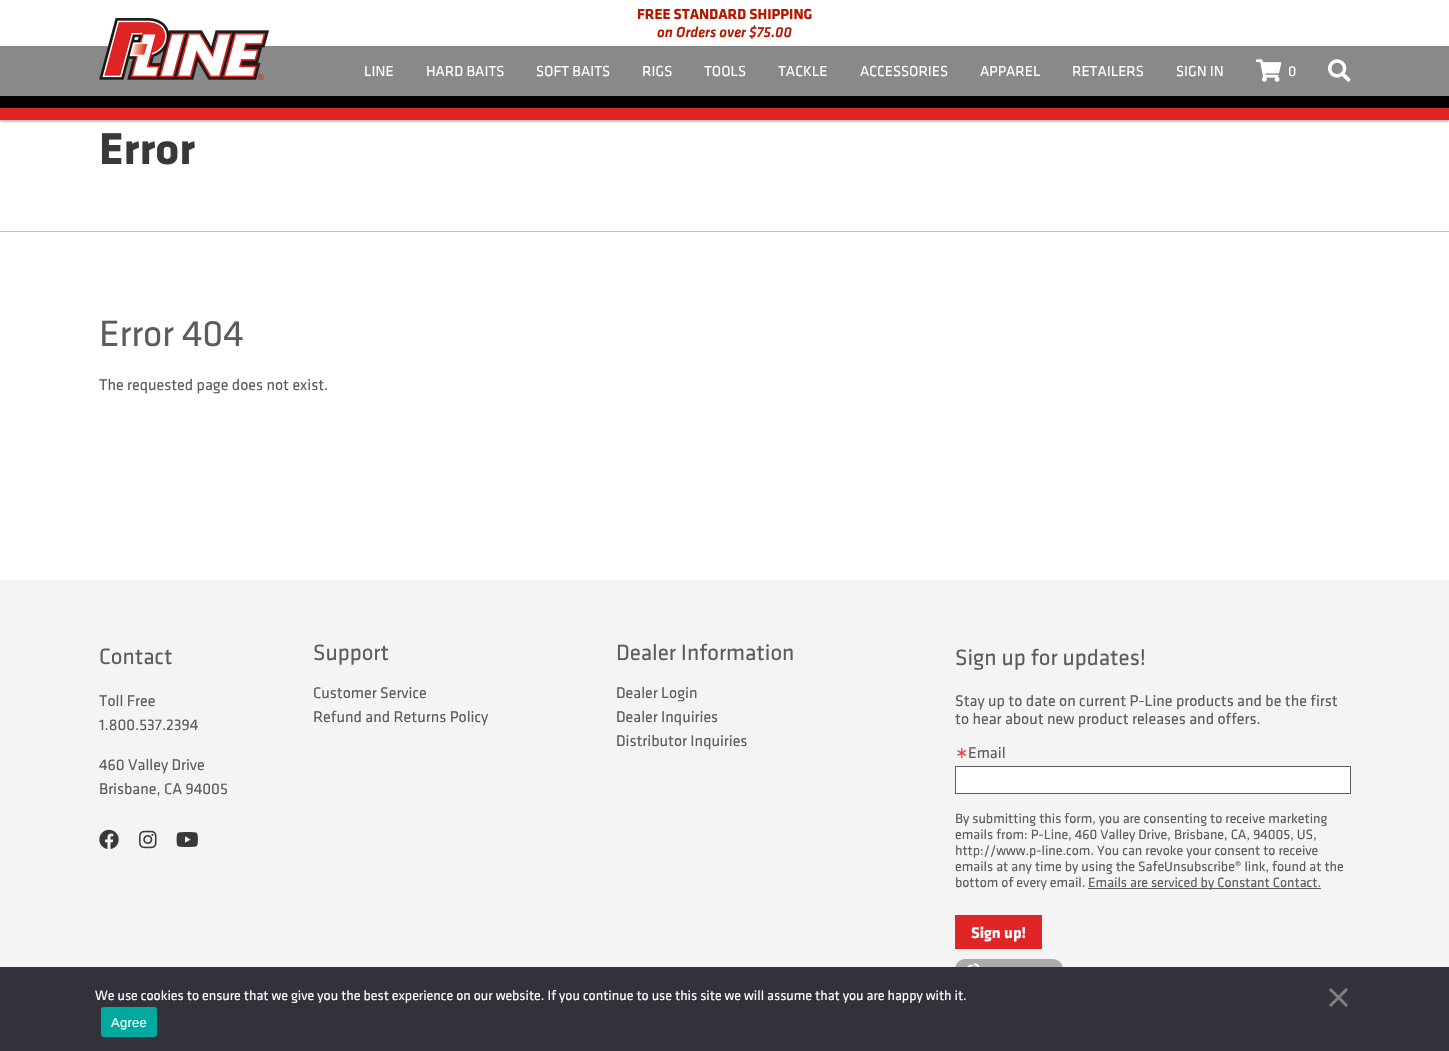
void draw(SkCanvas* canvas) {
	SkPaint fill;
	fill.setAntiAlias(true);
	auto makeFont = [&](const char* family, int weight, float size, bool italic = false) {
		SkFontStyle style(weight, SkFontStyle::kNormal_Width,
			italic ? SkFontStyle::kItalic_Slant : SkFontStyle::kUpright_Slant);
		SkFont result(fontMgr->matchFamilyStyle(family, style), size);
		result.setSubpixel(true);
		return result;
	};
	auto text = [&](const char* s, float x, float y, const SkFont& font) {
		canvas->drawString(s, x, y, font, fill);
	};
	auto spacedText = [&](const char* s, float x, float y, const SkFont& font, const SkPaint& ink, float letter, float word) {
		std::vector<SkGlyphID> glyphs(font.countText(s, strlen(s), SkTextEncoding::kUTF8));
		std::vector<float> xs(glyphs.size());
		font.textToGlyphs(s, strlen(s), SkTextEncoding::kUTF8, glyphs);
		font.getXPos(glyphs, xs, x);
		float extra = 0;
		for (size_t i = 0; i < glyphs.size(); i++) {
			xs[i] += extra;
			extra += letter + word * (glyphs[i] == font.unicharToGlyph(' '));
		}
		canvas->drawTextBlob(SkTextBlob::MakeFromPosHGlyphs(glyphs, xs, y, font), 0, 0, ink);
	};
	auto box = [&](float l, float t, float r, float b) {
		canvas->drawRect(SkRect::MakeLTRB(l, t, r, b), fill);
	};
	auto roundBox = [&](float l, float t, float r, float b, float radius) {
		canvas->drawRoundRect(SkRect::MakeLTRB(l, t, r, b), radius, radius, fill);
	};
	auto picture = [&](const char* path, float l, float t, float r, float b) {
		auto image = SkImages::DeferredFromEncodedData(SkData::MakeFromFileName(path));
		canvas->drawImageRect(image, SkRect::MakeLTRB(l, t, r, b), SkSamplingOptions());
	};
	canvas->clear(0xFFFFFFFF);
	canvas->save();
	canvas->clipRect(SkRect::MakeLTRB(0, 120, 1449, 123));
	fill.setColor(0x40000000);
	fill.setMaskFilter(SkMaskFilter::MakeBlur(kNormal_SkBlurStyle, 1));
	canvas->drawRect(SkRect::MakeLTRB(0, 2, 1449, 122), fill);
	fill.setMaskFilter(nullptr);
	canvas->restore();
	fill.setColor(0xFFDF2525);
	box(0, 108, 1449, 120);
	fill.setColor(0xFF000000);
	box(0, 96, 1449, 108);
	fill.setColor(0xFF8A8989);
	box(0, 46, 1449, 96);
	picture("image0.png", 99, 18, 269, 80);
	picture("image1.png", 1256, 59, 1282, 82);
	picture("image2.png", 1328, 59, 1351, 82);
	fill.setColor(0xFFC0C0C0);
	box(0, 231, 1449, 232);
	fill.setColor(0xFFF4F4F4);
	box(0, 580, 1449, 967);
	picture("image3.png", 99, 829, 119, 849);
	picture("image4.png", 139, 830, 157, 849);
	picture("image5.png", 176, 832, 198, 847);
	fill.setColor(0xFFFFFFFF);
	canvas->drawRect(SkRect::MakeLTRB(955.5f, 766.5f, 1350.5f, 793.5f), fill);
	fill.setStyle(SkPaint::kStroke_Style);
	fill.setStrokeWidth(1);
	fill.setColor(0xFF5F5B5B);
	canvas->drawRect(SkRect::MakeLTRB(955.5f, 766.5f, 1350.5f, 793.5f), fill);
	fill.setStyle(SkPaint::kFill_Style);
	box(1088, 888, 1321, 889);
	fill.setColor(0xFFDF2525);
	box(955, 915, 1042, 949);
	fill.setColor(0xFFABABAB);
	roundBox(955, 959, 1063, 982, 10);
	picture("image6.png", 967, 963, 980, 967);
	fill.setColor(0xFF32323A);
	box(0, 967, 1449, 1051);
	fill.setColor(0xFF808080);
	canvas->drawPath(SkPathBuilder().moveTo(1331, 988).lineTo(1348, 1005).lineTo(1346, 1007).lineTo(1329, 990).close().detach(), fill);
	canvas->drawPath(SkPathBuilder().moveTo(1329, 1005).lineTo(1346, 988).lineTo(1348, 990).lineTo(1331, 1007).close().detach(), fill);
	fill.setColor(0xFF00A99D);
	roundBox(101, 1007, 157, 1037, 3);
	auto font1 = makeFont("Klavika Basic", 700, 15);
	fill.setColor(0xFFB51A00);
	text("FREE STANDARD SHIPPING", 637, 19, font1);
	auto font2 = makeFont("Klavika Basic", 600, 15, true);
	text("on Orders over $75.00", 657, 37, font2);
	auto font3 = makeFont("Klavika Basic", 400, 15);
	fill.setColor(0xFFFFFFFF);
	text("LINE", 364, 76, font3);
	text("HARD BAITS", 426, 76, font3);
	text("SOFT BAITS", 536, 76, font3);
	text("RIGS", 642, 76, font3);
	text("TOOLS", 704, 76, font3);
	text("TACKLE", 778, 76, font3);
	text("ACCESSORIES", 860, 76, font3);
	text("APPAREL", 980, 76, font3);
	text("RETAILERS", 1072, 76, font3);
	text("SIGN IN", 1176, 76, font3);
	text("0", 1288, 76, font3);
	auto font4 = makeFont("Klavika Basic", 700, 46);
	fill.setColor(0xFF39393A);
	text("Error", 99, 164, font4);
	auto font5 = makeFont("Klavika Basic", 400, 38);
	fill.setColor(0xFF5F5B5B);
	text("Error 404", 99, 346, font5);
	auto font6 = makeFont("Klavika Basic", 400, 16);
	text("The requested page does not exist.", 99, 390, font6);
	auto font7 = makeFont("Klavika Basic", 400, 23);
	text("Contact", 99, 664, font7);
	text("Toll Free", 99, 706, font6);
	text("1.800.537.2394", 99, 730, font6);
	text("460 Valley Drive", 99, 770, font6);
	text("Brisbane, CA 94005", 99, 794, font6);
	text("Support", 313, 660, font7);
	text("Customer Service", 313, 698, font6);
	text("Refund and Returns Policy", 313, 722, font6);
	text("Dealer Information", 616, 660, font7);
	text("Dealer Login", 616, 698, font6);
	text("Dealer Inquiries", 616, 722, font6);
	text("Distributor Inquiries", 616, 746, font6);
	text("Sign up for updates!", 955, 665, font7);
	text("Stay up to date on current P-Line products and be the first", 955, 706, font6);
	text("to hear about new product releases and offers.", 955, 724, font6);
	auto font8 = makeFont("DejaVu Sans", 400, 16);
	fill.setColor(0xFFF5463B);
	text("∗", 955, 758, font8);
	fill.setColor(0xFF5F5B5B);
	text("Email", 968, 758, font6);
	auto font9 = makeFont("Klavika Basic", 400, 14);
	text("By submitting this form, you are consenting to receive marketing", 955, 823, font9);
	text("emails from: P-Line, 460 Valley Drive, Brisbane, CA, 94005, US,", 955, 839, font9);
	text("http://www.p-line.com. You can revoke your consent to receive", 955, 855, font9);
	text("emails at any time by using the SafeUnsubscribe® link, found at the", 955, 871, font9);
	text("bottom of every email.", 955, 887, font9);
	text("Emails are serviced by Constant Contact.", 1088, 887, font9);
	auto font10 = makeFont("Klavika Basic", 700, 16);
	fill.setColor(0xFFFFFFFF);
	text("Sign up!", 971, 938, font10);
	text("We use cookies to ensure that we give you the best experience on our website. If you continue to use this site we will assume that you are happy with it.", 95, 1000, font9);
	auto font11 = makeFont("Liberation Sans", 400, 13);
	spacedText("Agree", 111, 1027, font11, fill, 0.25f, 0);
}
